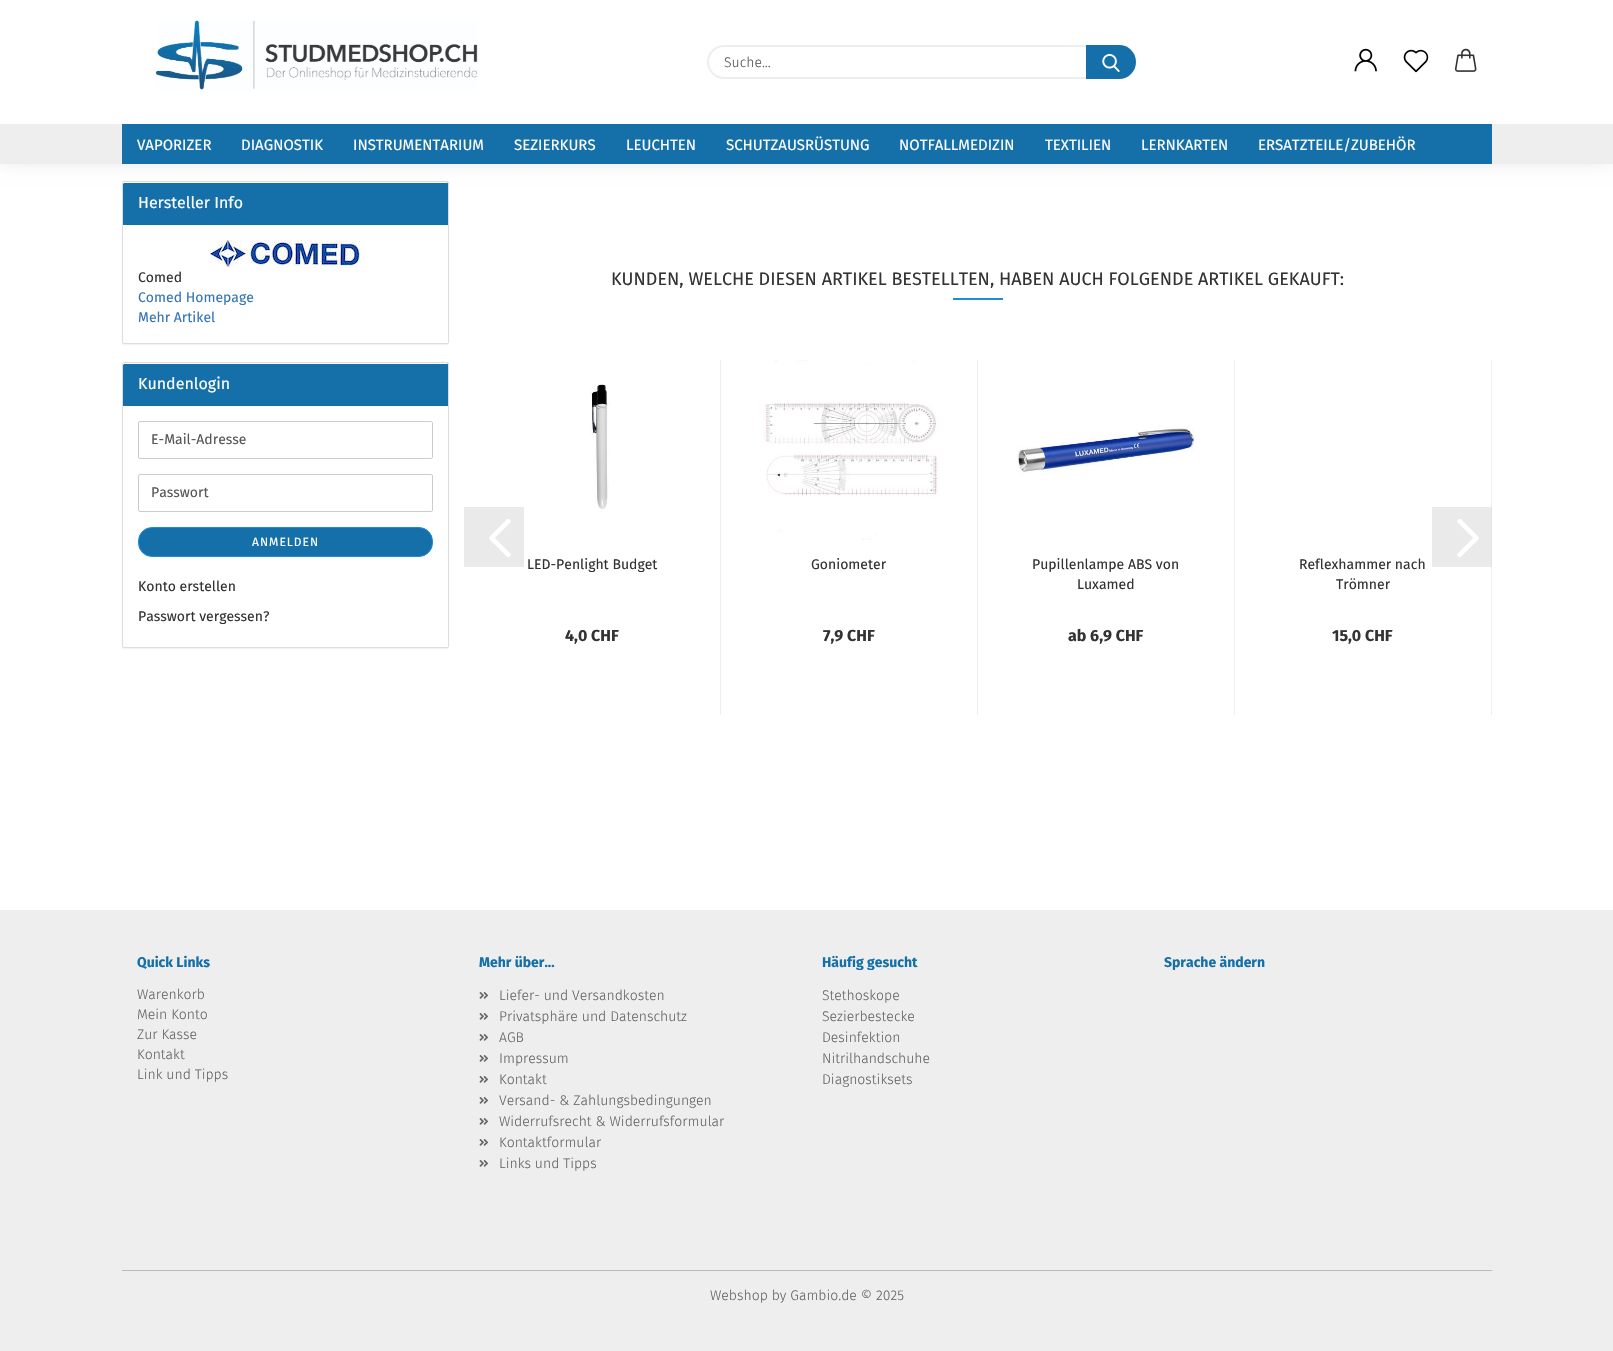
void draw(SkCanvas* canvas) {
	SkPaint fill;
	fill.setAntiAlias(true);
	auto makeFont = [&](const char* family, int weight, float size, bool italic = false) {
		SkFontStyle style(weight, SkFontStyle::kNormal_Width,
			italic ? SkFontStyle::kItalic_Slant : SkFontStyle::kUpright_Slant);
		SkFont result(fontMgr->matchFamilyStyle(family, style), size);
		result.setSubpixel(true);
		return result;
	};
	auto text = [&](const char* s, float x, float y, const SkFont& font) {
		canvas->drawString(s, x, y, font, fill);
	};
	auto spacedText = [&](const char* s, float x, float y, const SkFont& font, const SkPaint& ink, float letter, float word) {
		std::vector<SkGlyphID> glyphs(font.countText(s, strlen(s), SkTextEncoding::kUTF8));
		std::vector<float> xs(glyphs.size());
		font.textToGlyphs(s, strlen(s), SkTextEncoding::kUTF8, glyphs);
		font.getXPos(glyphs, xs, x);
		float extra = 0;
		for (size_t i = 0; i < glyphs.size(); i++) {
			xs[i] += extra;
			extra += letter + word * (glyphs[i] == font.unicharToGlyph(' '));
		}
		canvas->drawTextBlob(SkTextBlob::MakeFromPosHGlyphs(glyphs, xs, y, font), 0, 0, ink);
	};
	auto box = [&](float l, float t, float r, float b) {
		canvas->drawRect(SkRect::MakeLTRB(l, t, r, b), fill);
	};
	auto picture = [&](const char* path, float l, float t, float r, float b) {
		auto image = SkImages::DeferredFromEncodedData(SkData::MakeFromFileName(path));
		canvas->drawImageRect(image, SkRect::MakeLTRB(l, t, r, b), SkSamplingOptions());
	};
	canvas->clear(0xFFFFFFFF);
	fill.setColor(0xFFEAEAEA);
	box(1432, 507, 1491, 567);
	fill.setColor(0x0D000000);
	fill.setMaskFilter(SkMaskFilter::MakeBlur(kNormal_SkBlurStyle, 0.5f));
	canvas->drawRoundRect(SkRect::MakeLTRB(122, 182, 449, 345), 2, 2, fill);
	fill.setMaskFilter(nullptr);
	fill.setColor(0xFFFFFFFF);
	canvas->drawRoundRect(SkRect::MakeLTRB(122.5f, 181.5f, 448.5f, 343.5f), 1.5f, 1.5f, fill);
	fill.setStyle(SkPaint::kStroke_Style);
	fill.setStrokeWidth(1);
	fill.setColor(0xFFDDDDDD);
	canvas->drawRoundRect(SkRect::MakeLTRB(122.5f, 181.5f, 448.5f, 343.5f), 1.5f, 1.5f, fill);
	fill.setStyle(SkPaint::kFill_Style);
	fill.setColor(0xFF1570AA);
	canvas->drawPath(SkPathBuilder().moveTo(124, 182).lineTo(447, 182).cubicTo(447.5f, 182, 448, 182.5f, 448, 183).lineTo(448, 225).lineTo(123, 225).lineTo(123, 183).cubicTo(123, 182.5f, 123.5f, 182, 124, 182).close().detach(), fill);
	fill.setColor(0xFFFFFFFF);
	canvas->drawPath(SkPathBuilder().moveTo(124, 183).lineTo(447, 183).cubicTo(448, 183, 448, 183, 448, 184).cubicTo(448, 183, 448, 182, 447, 182).lineTo(124, 182).lineTo(123, 182).lineTo(123, 184).close().detach(), fill);
	fill.setColor(0x4D000000);
	fill.setMaskFilter(SkMaskFilter::MakeBlur(kNormal_SkBlurStyle, 12.5f));
	canvas->drawRect(SkRect::MakeLTRB(0, 0, 1613, 150), fill);
	fill.setMaskFilter(nullptr);
	fill.setColor(0xFFFFFFFF);
	box(0, 0, 1613, 124);
	picture("image0.png", 155, 20, 478, 90);
	fill.setStyle(SkPaint::kStroke_Style);
	fill.setStrokeWidth(2);
	fill.setColor(0xFFEEEEEE);
	canvas->drawRoundRect(SkRect::MakeLTRB(708, 46, 1133, 78), 16, 16, fill);
	fill.setStyle(SkPaint::kFill_Style);
	fill.setColor(0xFF1570AA);
	canvas->drawPath(SkPathBuilder().moveTo(1086, 45).lineTo(1119, 45).cubicTo(1128.5f, 45, 1136, 52.5f, 1136, 62).cubicTo(1136, 71.5f, 1128.5f, 79, 1119, 79).lineTo(1086, 79).close().detach(), fill);
	picture("image1.png", 1102, 54, 1120, 72);
	picture("image2.png", 1354, 48, 1377, 72);
	picture("image3.png", 1403, 49, 1429, 73);
	picture("image4.png", 1454, 48, 1477, 72);
	fill.setColor(0xFFEEEEEE);
	box(0, 124, 1613, 164);
	fill.setColor(0xFF1570AA);
	box(122, 124, 1492, 164);
	picture("image5.png", 210, 240, 360, 268);
	fill.setColor(0x0D000000);
	fill.setMaskFilter(SkMaskFilter::MakeBlur(kNormal_SkBlurStyle, 0.5f));
	canvas->drawRoundRect(SkRect::MakeLTRB(122, 363, 449, 649), 2, 2, fill);
	fill.setMaskFilter(nullptr);
	fill.setColor(0xFFFFFFFF);
	canvas->drawRoundRect(SkRect::MakeLTRB(122.5f, 362.5f, 448.5f, 647.5f), 1.5f, 1.5f, fill);
	fill.setStyle(SkPaint::kStroke_Style);
	fill.setStrokeWidth(1);
	fill.setColor(0xFFDDDDDD);
	canvas->drawRoundRect(SkRect::MakeLTRB(122.5f, 362.5f, 448.5f, 647.5f), 1.5f, 1.5f, fill);
	fill.setStyle(SkPaint::kFill_Style);
	fill.setColor(0xFF1570AA);
	canvas->drawPath(SkPathBuilder().moveTo(124, 363).lineTo(447, 363).cubicTo(447.5f, 363, 448, 363.5f, 448, 364).lineTo(448, 406).lineTo(123, 406).lineTo(123, 364).cubicTo(123, 363.5f, 123.5f, 363, 124, 363).close().detach(), fill);
	fill.setColor(0xFFFFFFFF);
	canvas->drawPath(SkPathBuilder().moveTo(124, 364).lineTo(447, 364).cubicTo(448, 364, 448, 364, 448, 365).cubicTo(448, 364, 448, 363, 447, 363).lineTo(124, 363).lineTo(123, 363).lineTo(123, 365).close().detach(), fill);
	fill.setStyle(SkPaint::kStroke_Style);
	fill.setColor(0xFFCCCCCC);
	canvas->drawRoundRect(SkRect::MakeLTRB(138.5f, 421.5f, 432.5f, 458.5f), 1.5f, 1.5f, fill);
	canvas->drawRoundRect(SkRect::MakeLTRB(138.5f, 474.5f, 432.5f, 511.5f), 1.5f, 1.5f, fill);
	fill.setStyle(SkPaint::kFill_Style);
	fill.setColor(0xFF1570AA);
	canvas->drawRoundRect(SkRect::MakeLTRB(138.5f, 527.5f, 432.5f, 556.5f), 13.5f, 13.5f, fill);
	fill.setStyle(SkPaint::kStroke_Style);
	fill.setColor(0xFF1B8ED7);
	canvas->drawRoundRect(SkRect::MakeLTRB(138.5f, 527.5f, 432.5f, 556.5f), 13.5f, 13.5f, fill);
	fill.setStyle(SkPaint::kFill_Style);
	box(953, 298, 1003, 300);
	fill.setColor(0xFFEAEAEA);
	box(464, 507, 524, 567);
	picture("image6.png", 489, 519, 511, 557);
	picture("image7.png", 1457, 519, 1479, 557);
	fill.setColor(0xFFEEEEEE);
	box(720, 360, 721, 715);
	picture("image8.png", 590, 384, 610, 509);
	box(977, 360, 978, 715);
	picture("image9.png", 763, 360, 939, 540);
	box(1234, 360, 1235, 715);
	picture("image10.png", 1016, 426, 1196, 475);
	box(1491, 360, 1492, 715);
	fill.setColor(0xFFE3E3E3);
	box(1491, 507, 1492, 567);
	fill.setColor(0xFFEEEEEE);
	box(0, 910, 1613, 1351);
	fill.setColor(0xFFBBBBBB);
	box(122, 1270, 1492, 1271);
	picture("image11.png", 479, 992, 488, 999);
	picture("image11.png", 479, 1013, 488, 1020);
	picture("image11.png", 479, 1034, 488, 1041);
	picture("image11.png", 479, 1055, 488, 1062);
	picture("image11.png", 479, 1076, 488, 1083);
	picture("image11.png", 479, 1097, 488, 1104);
	picture("image11.png", 479, 1118, 488, 1125);
	picture("image11.png", 479, 1139, 488, 1146);
	picture("image11.png", 479, 1160, 488, 1167);
	auto font1 = makeFont("Fira Sans", 300, 14);
	fill.setColor(0xFF575757);
	text("Suche...", 724, 67, font1);
	auto font2 = makeFont("Fira Sans", 400, 15);
	fill.setColor(0xFFFFFFFF);
	text("VAPORIZER", 137, 150, font2);
	text("DIAGNOSTIK", 241, 150, font2);
	text("INSTRUMENTARIUM", 353, 150, font2);
	text("SEZIERKURS", 514, 150, font2);
	text("LEUCHTEN", 626, 150, font2);
	text("SCHUTZAUSRÜSTUNG", 726, 150, font2);
	text("NOTFALLMEDIZIN", 899, 150, font2);
	text("TEXTILIEN", 1045, 150, font2);
	text("LERNKARTEN", 1141, 150, font2);
	text("ERSATZTEILE/ZUBEHÖR", 1258, 150, font2);
	auto font3 = makeFont("Fira Sans", 400, 16);
	text("Hersteller Info", 138, 208, font3);
	auto font4 = makeFont("Fira Sans", 400, 14);
	fill.setColor(0xFF333333);
	text("Comed", 138, 282, font4);
	fill.setColor(0xFF3776B3);
	text("Comed Homepage", 138, 302, font4);
	text("Mehr Artikel", 138, 322, font4);
	fill.setColor(0xFFFFFFFF);
	text("Kundenlogin", 138, 389, font3);
	fill.setColor(0xFF575757);
	text("E-Mail-Adresse", 151, 444, font4);
	text("Passwort", 151, 497, font4);
	auto font5 = makeFont("Fira Sans", 400, 12);
	fill.setColor(0xFFFFFFFF);
	spacedText("ANMELDEN", 252, 546, font5, fill, 1, 0);
	fill.setColor(0xFF333333);
	text("Konto erstellen", 138, 591, font4);
	text("Passwort vergessen?", 138, 621, font4);
	auto font6 = makeFont("Fira Sans", 400, 18);
	text("KUNDEN, WELCHE DIESEN ARTIKEL BESTELLTEN, HABEN AUCH FOLGENDE ARTIKEL GEKAUFT:", 611, 285, font6);
	text("LED-Penlight Budget", 527, 569, font4);
	auto font7 = makeFont("Fira Sans", 700, 16);
	text("4,0 CHF", 565, 641, font7);
	text("Goniometer", 811, 569, font4);
	text("7,9 CHF", 823, 641, font7);
	text("Pupillenlampe ABS von", 1032, 569, font4);
	text("Luxamed", 1077, 589, font4);
	text("ab 6,9 CHF", 1068, 641, font7);
	text("Reflexhammer nach", 1299, 569, font4);
	text("Trömner", 1336, 589, font4);
	text("15,0 CHF", 1332, 641, font7);
	auto font8 = makeFont("Fira Sans", 700, 14);
	fill.setColor(0xFF1570AA);
	text("Quick Links", 137, 967, font8);
	fill.setColor(0xFF666666);
	text("Warenkorb", 137, 999, font1);
	text("Mein Konto", 137, 1019, font1);
	text("Zur Kasse", 137, 1039, font1);
	text("Kontakt", 137, 1059, font1);
	text("Link und Tipps", 137, 1079, font1);
	fill.setColor(0xFF1570AA);
	text("Mehr über...", 479, 967, font8);
	fill.setColor(0xFF666666);
	text("Liefer- und Versandkosten", 499, 1000, font1);
	text("Privatsphäre und Datenschutz", 499, 1021, font1);
	text("AGB", 499, 1042, font1);
	text("Impressum", 499, 1063, font1);
	text("Kontakt", 499, 1084, font1);
	text("Versand- & Zahlungsbedingungen", 499, 1105, font1);
	text("Widerrufsrecht & Widerrufsformular", 499, 1126, font1);
	text("Kontaktformular", 499, 1147, font1);
	text("Links und Tipps", 499, 1168, font1);
	fill.setColor(0xFF1570AA);
	text("Häufig gesucht", 822, 967, font8);
	fill.setColor(0xFF666666);
	text("Stethoskope", 822, 1000, font1);
	text("Sezierbestecke", 822, 1021, font1);
	text("Desinfektion", 822, 1042, font1);
	text("Nitrilhandschuhe", 822, 1063, font1);
	text("Diagnostiksets", 822, 1084, font1);
	fill.setColor(0xFF1570AA);
	text("Sprache ändern", 1164, 967, font8);
	fill.setColor(0xFF666666);
	text("Webshop by Gambio.de © 2025", 710, 1300, font1);
}
